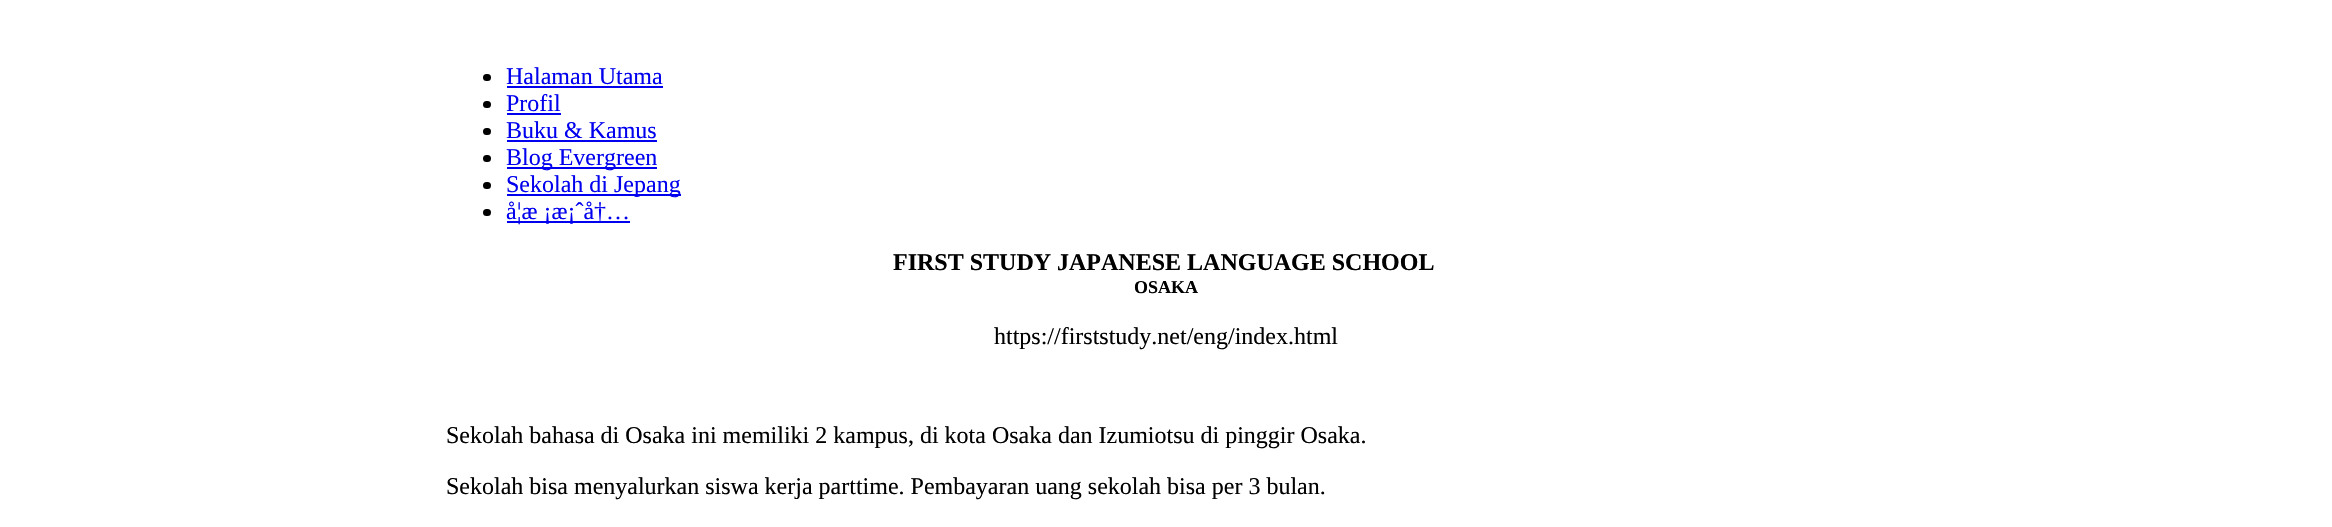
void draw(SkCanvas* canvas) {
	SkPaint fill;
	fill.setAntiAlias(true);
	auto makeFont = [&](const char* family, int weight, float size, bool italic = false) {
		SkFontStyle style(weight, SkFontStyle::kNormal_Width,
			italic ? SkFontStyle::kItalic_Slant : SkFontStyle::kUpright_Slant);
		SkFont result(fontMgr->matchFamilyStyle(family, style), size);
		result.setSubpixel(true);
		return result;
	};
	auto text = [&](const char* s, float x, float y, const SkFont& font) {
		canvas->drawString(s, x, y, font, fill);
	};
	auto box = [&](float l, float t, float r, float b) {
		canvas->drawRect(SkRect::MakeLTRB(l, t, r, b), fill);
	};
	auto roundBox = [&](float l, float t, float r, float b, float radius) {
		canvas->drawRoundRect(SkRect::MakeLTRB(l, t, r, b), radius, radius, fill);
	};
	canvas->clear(0xFFFFFFFF);
	fill.setColor(0xFF000000);
	roundBox(483, 74, 491, 81, 3.5f);
	fill.setColor(0xFF0000EE);
	box(507, 86, 663, 88);
	fill.setColor(0xFF000000);
	roundBox(483, 101, 491, 108, 3.5f);
	fill.setColor(0xFF0000EE);
	box(507, 113, 561, 115);
	fill.setColor(0xFF000000);
	roundBox(483, 128, 491, 135, 3.5f);
	fill.setColor(0xFF0000EE);
	box(507, 140, 657, 142);
	fill.setColor(0xFF000000);
	roundBox(483, 155, 491, 162, 3.5f);
	fill.setColor(0xFF0000EE);
	box(507, 167, 657, 169);
	fill.setColor(0xFF000000);
	roundBox(483, 182, 491, 189, 3.5f);
	fill.setColor(0xFF0000EE);
	box(507, 194, 681, 196);
	fill.setColor(0xFF000000);
	roundBox(483, 209, 491, 216, 3.5f);
	fill.setColor(0xFF0000EE);
	box(507, 221, 630, 223);
	auto font1 = makeFont("Liberation Serif", 400, 24);
	text("Halaman Utama", 506, 84, font1);
	text("Profil", 506, 111, font1);
	text("Buku & Kamus", 506, 138, font1);
	text("Blog Evergreen", 506, 165, font1);
	text("Sekolah di Jepang", 506, 192, font1);
	text("å¦æ ¡æ¡ˆå†…", 506, 219, font1);
	auto font2 = makeFont("Liberation Serif", 700, 24);
	fill.setColor(0xFF000000);
	text("FIRST STUDY JAPANESE LANGUAGE SCHOOL", 893, 270, font2);
	auto font3 = makeFont("Liberation Serif", 700, 18);
	text("OSAKA", 1134, 293, font3);
	text("https://firststudy.net/eng/index.html", 994, 344, font1);
	text("Sekolah bahasa di Osaka ini memiliki 2 kampus, di kota Osaka dan Izumiotsu di pinggir Osaka.", 446, 443, font1);
	text("Sekolah bisa menyalurkan siswa kerja parttime. Pembayaran uang sekolah bisa per 3 bulan.", 446, 494, font1);
}
